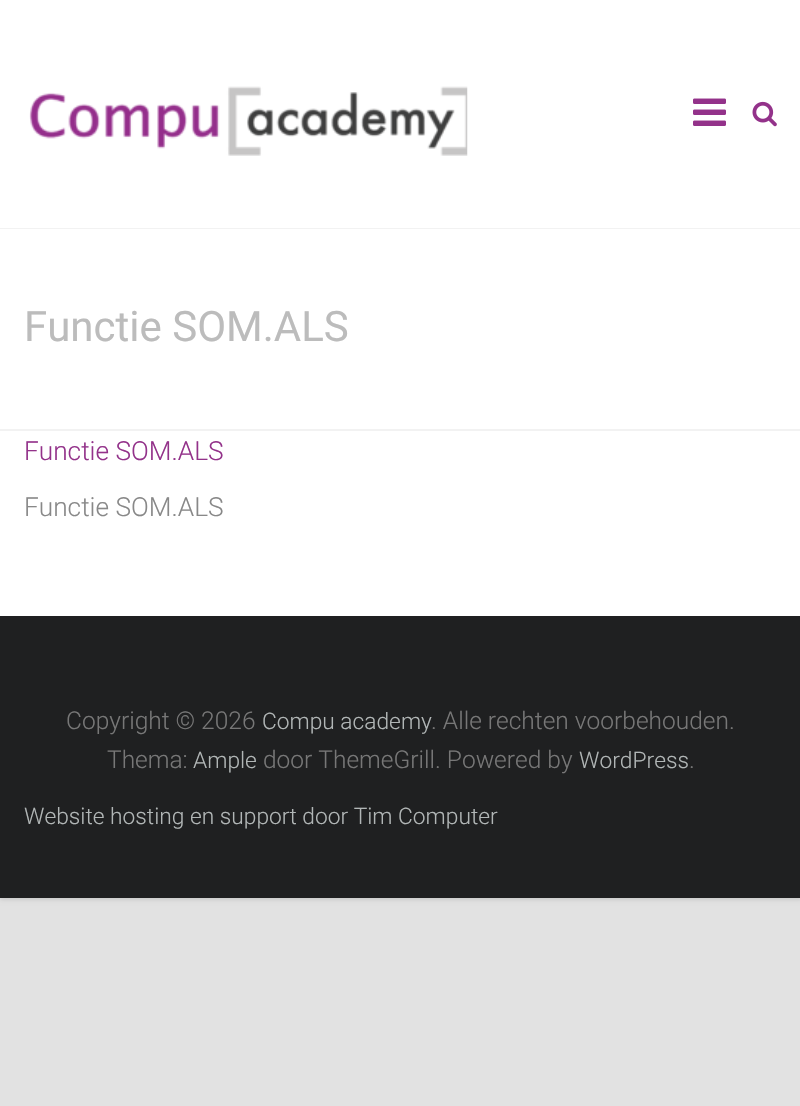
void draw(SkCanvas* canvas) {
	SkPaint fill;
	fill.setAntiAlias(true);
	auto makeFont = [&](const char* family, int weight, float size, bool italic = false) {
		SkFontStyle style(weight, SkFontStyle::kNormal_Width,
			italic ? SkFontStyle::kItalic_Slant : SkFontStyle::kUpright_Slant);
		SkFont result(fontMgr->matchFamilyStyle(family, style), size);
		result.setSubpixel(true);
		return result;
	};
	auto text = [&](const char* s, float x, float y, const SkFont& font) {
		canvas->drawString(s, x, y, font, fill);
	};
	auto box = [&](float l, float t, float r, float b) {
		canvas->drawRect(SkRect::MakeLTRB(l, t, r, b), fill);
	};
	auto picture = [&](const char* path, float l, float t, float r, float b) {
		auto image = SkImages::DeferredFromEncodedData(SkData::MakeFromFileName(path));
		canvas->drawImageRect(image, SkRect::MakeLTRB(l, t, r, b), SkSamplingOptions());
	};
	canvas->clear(0xFFE2E2E2);
	fill.setColor(0x1A000000);
	fill.setMaskFilter(SkMaskFilter::MakeBlur(kNormal_SkBlurStyle, 2));
	canvas->drawRect(SkRect::MakeLTRB(0, 2, 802, 900), fill);
	fill.setMaskFilter(nullptr);
	fill.setColor(0xFFFFFFFF);
	box(0, 0, 800, 616);
	fill.setColor(0xFFF2F2F2);
	box(0, 228, 800, 229);
	picture("image0.png", 29, 86, 468, 156);
	picture("image1.png", 693, 98, 726, 126);
	picture("image2.png", 752, 101, 777, 127);
	box(0, 429, 800, 431);
	fill.setColor(0xFF1F2021);
	box(0, 616, 800, 898);
	auto font1 = makeFont("Roboto", 400, 42);
	fill.setColor(0xFFBCBCBC);
	text("Functie SOM.ALS", 24, 341, font1);
	auto font2 = makeFont("Roboto", 300, 26.25f);
	fill.setColor(0xFF93328A);
	text("Functie SOM.ALS", 24, 460, font2);
	fill.setColor(0xFF888888);
	text("Functie SOM.ALS", 24, 516, font2);
	auto font3 = makeFont("Roboto", 300, 24.5f);
	fill.setColor(0xFF777777);
	text("Copyright © 2026", 66, 729, font3);
	auto font4 = makeFont("Roboto", 300, 22.75f);
	fill.setColor(0xFFB1B6B6);
	text("Compu academy", 262, 729, font4);
	fill.setColor(0xFF777777);
	text(". Alle rechten voorbehouden.", 431, 729, font3);
	text("Thema:", 107, 768, font3);
	fill.setColor(0xFFB1B6B6);
	text("Ample", 193, 768, font4);
	fill.setColor(0xFF777777);
	text("door ThemeGrill. Powered by", 263, 768, font3);
	fill.setColor(0xFFB1B6B6);
	text("WordPress", 579, 768, font4);
	fill.setColor(0xFF777777);
	text(".", 689, 768, font3);
	fill.setColor(0xFFB1B6B6);
	text("Website hosting en support door Tim Computer", 24, 824, font4);
}
